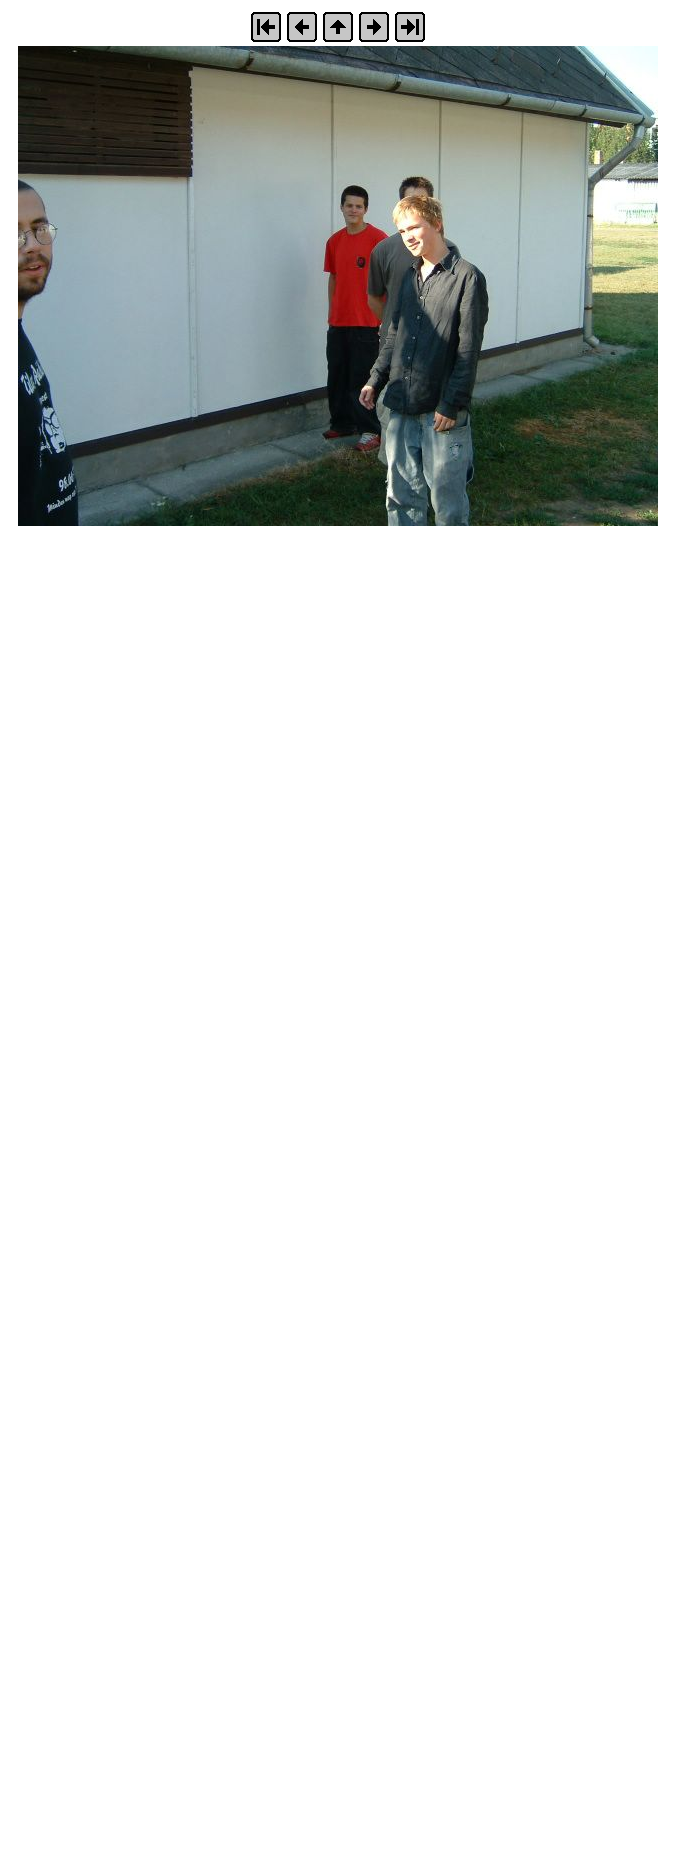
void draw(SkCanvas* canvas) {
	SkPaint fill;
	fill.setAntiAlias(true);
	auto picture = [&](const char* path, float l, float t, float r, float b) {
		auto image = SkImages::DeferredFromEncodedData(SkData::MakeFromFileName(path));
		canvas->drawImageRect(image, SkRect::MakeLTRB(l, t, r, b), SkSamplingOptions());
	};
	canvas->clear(0xFFFFFFFF);
	picture("image0.png", 251, 12, 281, 42);
	picture("image1.png", 287, 12, 317, 42);
	picture("image2.png", 323, 12, 353, 42);
	picture("image3.png", 359, 12, 389, 42);
	picture("image4.png", 395, 12, 425, 42);
	picture("image5.png", 18, 46, 658, 526);
}
